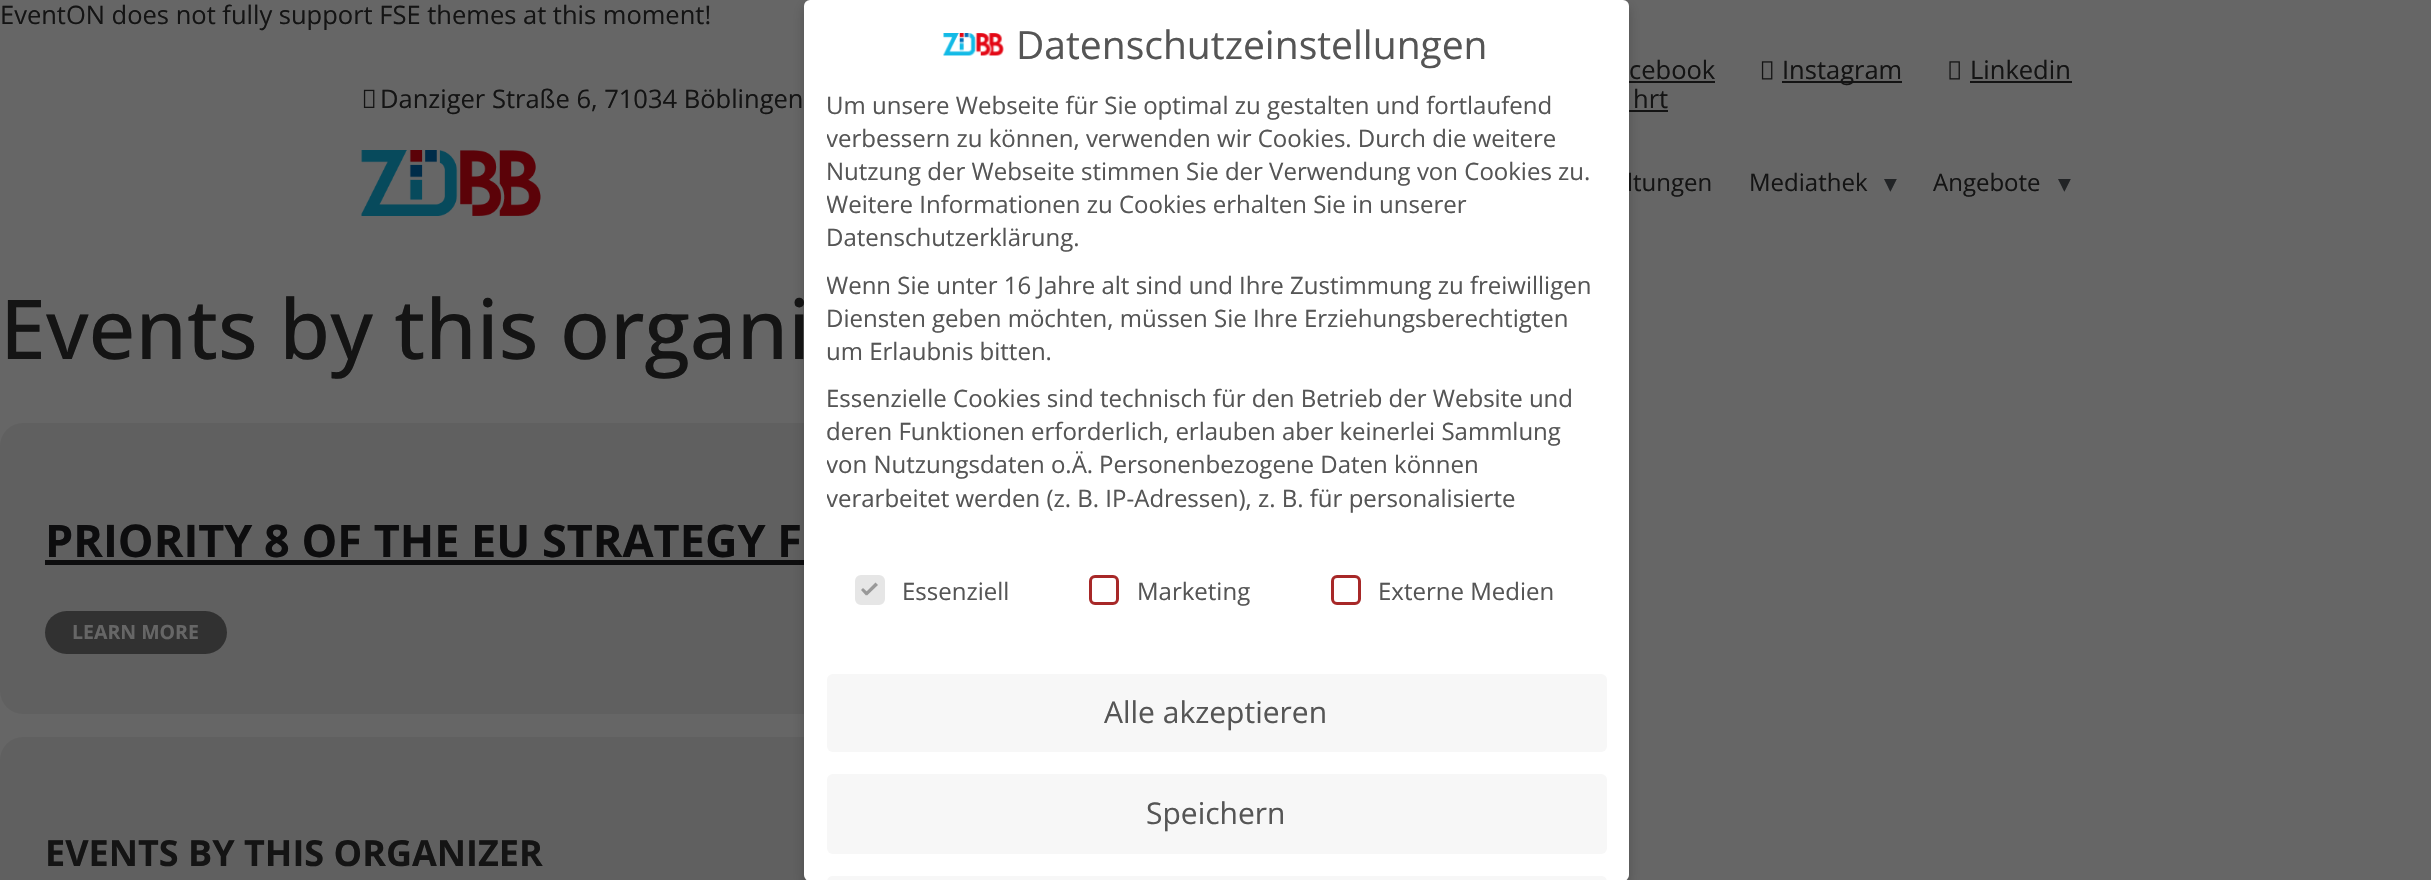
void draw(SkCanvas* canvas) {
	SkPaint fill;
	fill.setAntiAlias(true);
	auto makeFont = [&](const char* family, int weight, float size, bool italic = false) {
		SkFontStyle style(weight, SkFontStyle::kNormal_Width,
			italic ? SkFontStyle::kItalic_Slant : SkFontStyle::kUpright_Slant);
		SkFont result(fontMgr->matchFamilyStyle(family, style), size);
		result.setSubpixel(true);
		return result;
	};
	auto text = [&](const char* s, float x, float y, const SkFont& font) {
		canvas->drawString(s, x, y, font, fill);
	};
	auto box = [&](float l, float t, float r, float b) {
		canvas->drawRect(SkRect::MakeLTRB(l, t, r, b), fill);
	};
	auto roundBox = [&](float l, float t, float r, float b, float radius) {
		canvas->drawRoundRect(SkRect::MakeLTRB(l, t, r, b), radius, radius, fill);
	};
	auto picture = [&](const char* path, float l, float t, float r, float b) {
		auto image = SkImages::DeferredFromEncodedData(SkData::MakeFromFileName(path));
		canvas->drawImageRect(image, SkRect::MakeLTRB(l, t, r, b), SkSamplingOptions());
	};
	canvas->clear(0xFF666666);
	fill.setColor(0xFF141414);
	box(1629, 81, 1715, 83);
	box(1629, 110, 1668, 112);
	fill.setColor(0xFF606060);
	roundBox(0, 423, 1587, 714, 23);
	fill.setColor(0xFF0D0D0E);
	box(45, 560, 804, 565);
	fill.setColor(0xFF606060);
	roundBox(0, 737, 1587, 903, 23);
	fill.setColor(0x33000000);
	fill.setMaskFilter(SkMaskFilter::MakeBlur(kNormal_SkBlurStyle, 6));
	canvas->drawRoundRect(SkRect::MakeLTRB(804, 6, 1629, 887), 6, 6, fill);
	fill.setMaskFilter(nullptr);
	fill.setColor(0xFFFFFFFF);
	roundBox(804, 0, 1629, 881, 6);
	picture("image0.png", 943, 33, 1004, 56);
	fill.setColor(0xFFE6E6E6);
	canvas->drawRoundRect(SkRect::MakeLTRB(856.5f, 576.5f, 883.5f, 603.5f), 4.5f, 4.5f, fill);
	fill.setStyle(SkPaint::kStroke_Style);
	fill.setStrokeWidth(3);
	canvas->drawRoundRect(SkRect::MakeLTRB(856.5f, 576.5f, 883.5f, 603.5f), 4.5f, 4.5f, fill);
	fill.setStyle(SkPaint::kFill_Style);
	fill.setColor(0xFF999999);
	canvas->drawPath(SkPathBuilder().moveTo(875.5f, 582.5f).lineTo(878, 585).lineTo(867, 595.5f).lineTo(865, 593).close().detach(), fill);
	canvas->drawPath(SkPathBuilder().moveTo(863, 588).lineTo(868.5f, 593).lineTo(866, 595.5f).lineTo(861, 590).close().detach(), fill);
	fill.setStyle(SkPaint::kStroke_Style);
	fill.setColor(0xFFA72828);
	canvas->drawRoundRect(SkRect::MakeLTRB(1090.5f, 576.5f, 1117.5f, 603.5f), 4.5f, 4.5f, fill);
	canvas->drawRoundRect(SkRect::MakeLTRB(1332.5f, 576.5f, 1359.5f, 603.5f), 4.5f, 4.5f, fill);
	fill.setStyle(SkPaint::kFill_Style);
	fill.setColor(0xFFF7F7F7);
	roundBox(827, 674, 1607, 752, 6);
	roundBox(827, 774, 1607, 854, 6);
	canvas->drawPath(SkPathBuilder().moveTo(833, 876).lineTo(1601, 876).cubicTo(1604.5f, 876, 1607, 878.5f, 1607, 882).lineTo(1607, 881).lineTo(827, 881).lineTo(827, 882).cubicTo(827, 878.5f, 829.5f, 876, 833, 876).close().detach(), fill);
	picture("image1.png", 1761, 61, 1773, 80);
	fill.setColor(0xFF141414);
	box(1782, 81, 1902, 83);
	picture("image2.png", 1949, 61, 1960, 80);
	box(1970, 81, 2072, 83);
	picture("image3.png", 363, 89, 375, 108);
	picture("image4.png", 361, 150, 541, 216);
	fill.setColor(0xFF313131);
	roundBox(45, 611, 227, 654, 21.5f);
	auto font1 = makeFont("Open Sans", 400, 25.5f);
	fill.setColor(0xFF141414);
	text("EventON does not fully support FSE themes at this moment!", 0, 24, font1);
	auto font2 = makeFont("Open Sans", 400, 39);
	fill.setColor(0xFF555555);
	text("Datenschutzeinstellungen", 1016, 59, font2);
	auto font3 = makeFont("Open Sans", 400, 24);
	text("Um unsere Webseite für Sie optimal zu gestalten und fortlaufend", 826, 114, font3);
	canvas->save();
	canvas->clipRect(SkRect::MakeLTRB(827, 89, 1607, 530));
	text("verbessern zu können, verwenden wir Cookies. Durch die weitere", 826, 147, font3);
	canvas->restore();
	text("Nutzung der Webseite stimmen Sie der Verwendung von Cookies zu.", 826, 180, font3);
	canvas->save();
	canvas->clipRect(SkRect::MakeLTRB(827, 89, 1607, 530));
	text("Weitere Informationen zu Cookies erhalten Sie in unserer", 826, 213, font3);
	canvas->restore();
	text("Datenschutzerklärung.", 826, 246, font3);
	canvas->save();
	canvas->clipRect(SkRect::MakeLTRB(827, 89, 1607, 530));
	text("Wenn Sie unter 16 Jahre alt sind und Ihre Zustimmung zu freiwilligen", 826, 294, font3);
	canvas->restore();
	text("Diensten geben möchten, müssen Sie Ihre Erziehungsberechtigten", 826, 327, font3);
	text("um Erlaubnis bitten.", 826, 360, font3);
	text("Essenzielle Cookies sind technisch für den Betrieb der Website und", 826, 407, font3);
	text("deren Funktionen erforderlich, erlauben aber keinerlei Sammlung", 826, 440, font3);
	canvas->save();
	canvas->clipRect(SkRect::MakeLTRB(827, 89, 1607, 530));
	text("von Nutzungsdaten o.Ä.", 826, 473, font3);
	canvas->restore();
	text("Personenbezogene Daten können", 1099, 473, font3);
	canvas->save();
	canvas->clipRect(SkRect::MakeLTRB(827, 89, 1607, 530));
	text("verarbeitet werden (z. B. IP-Adressen), z. B. für personalisierte", 826, 507, font3);
	canvas->restore();
	text("Essenziell", 902, 600, font3);
	text("Marketing", 1137, 600, font3);
	text("Externe Medien", 1378, 600, font3);
	auto font4 = makeFont("Open Sans", 400, 30);
	text("Alle akzeptieren", 1104, 723, font4);
	text("Speichern", 1146, 824, font4);
	fill.setColor(0xFF141414);
	text("cebook", 1629, 79, font1);
	text("Instagram", 1782, 79, font1);
	text("Linkedin", 1970, 79, font1);
	text("Danziger Straße 6, 71034 Böblingen", 380, 108, font1);
	text("hrt", 1633, 108, font1);
	text("ltungen", 1627, 191, font3);
	text("Mediathek", 1749, 191, font3);
	auto font5 = makeFont("DejaVu Sans", 400, 25.5f);
	fill.setColor(0xFF222426);
	text("▾", 1884, 192, font5);
	fill.setColor(0xFF141414);
	text("Angebote", 1933, 191, font3);
	fill.setColor(0xFF222426);
	text("▾", 2058, 192, font5);
	auto font6 = makeFont("Open Sans", 500, 82.5f);
	fill.setColor(0xFF141414);
	text("Events by this organi", 0, 359, font6);
	auto font7 = makeFont("Open Sans", 700, 45);
	fill.setColor(0xFF0D0D0E);
	text("PRIORITY 8 OF THE EU STRATEGY F", 45, 557, font7);
	auto font8 = makeFont("Open Sans", 700, 19.5f);
	fill.setColor(0xFF666666);
	text("LEARN MORE", 72, 639, font8);
	auto font9 = makeFont("Open Sans", 700, 36);
	fill.setColor(0xFF141414);
	text("EVENTS BY THIS ORGANIZER", 45, 866, font9);
}
